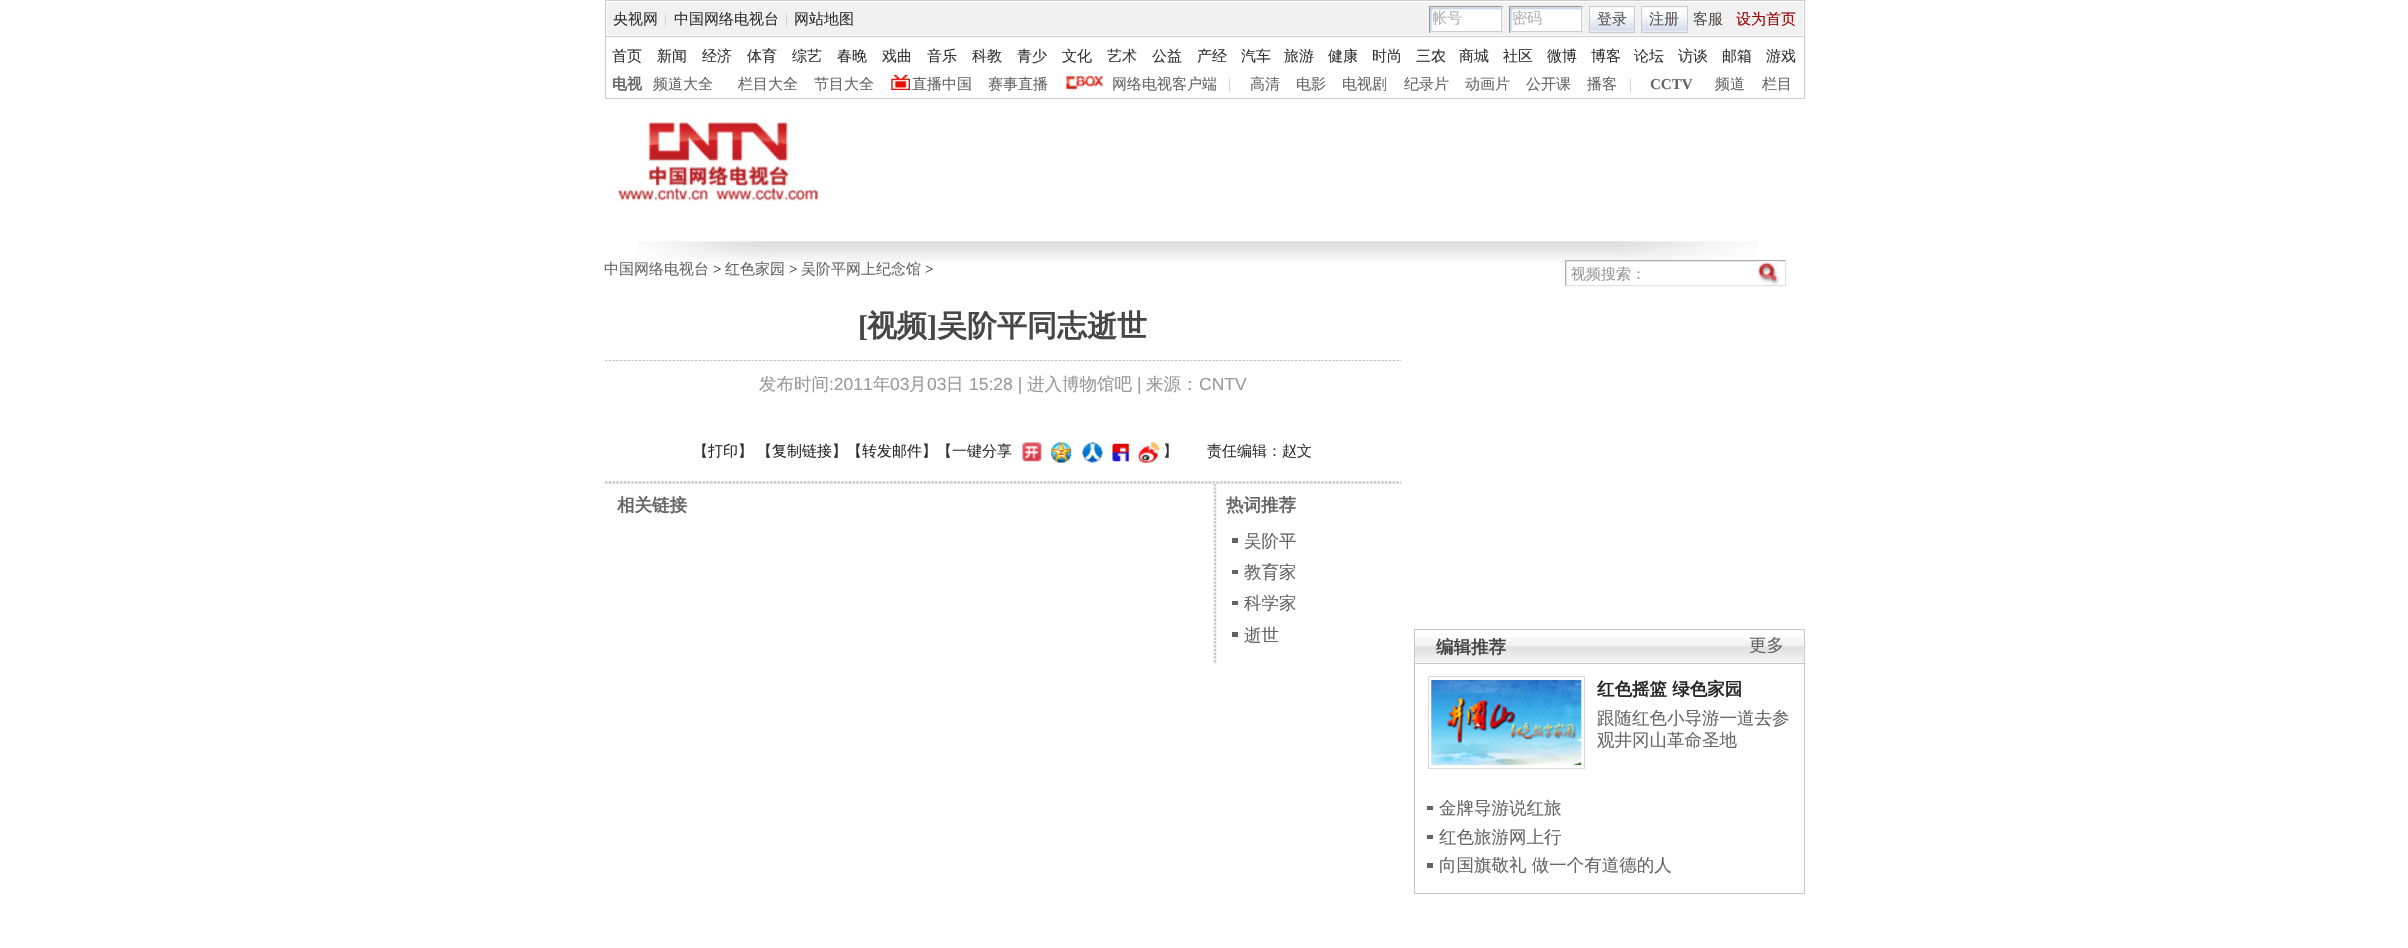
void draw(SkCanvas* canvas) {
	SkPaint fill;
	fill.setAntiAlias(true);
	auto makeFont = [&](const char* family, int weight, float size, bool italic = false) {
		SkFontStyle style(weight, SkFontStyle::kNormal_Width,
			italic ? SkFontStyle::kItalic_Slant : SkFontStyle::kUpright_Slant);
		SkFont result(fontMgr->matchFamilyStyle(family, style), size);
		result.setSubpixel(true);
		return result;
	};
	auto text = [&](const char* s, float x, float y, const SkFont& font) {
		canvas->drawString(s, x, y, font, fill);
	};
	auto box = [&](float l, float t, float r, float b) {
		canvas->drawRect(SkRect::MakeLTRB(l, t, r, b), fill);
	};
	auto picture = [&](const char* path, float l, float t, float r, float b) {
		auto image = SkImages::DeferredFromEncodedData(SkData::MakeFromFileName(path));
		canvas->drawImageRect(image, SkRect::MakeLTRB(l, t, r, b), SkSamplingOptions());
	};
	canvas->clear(0xFFFFFFFF);
	fill.setStyle(SkPaint::kStroke_Style);
	fill.setStrokeWidth(1);
	fill.setColor(0xFFCCCCCC);
	canvas->drawRect(SkRect::MakeLTRB(605.5f, 0.5f, 1804.5f, 98.5f), fill);
	fill.setStyle(SkPaint::kFill_Style);
	fill.setColor(0xFFF1F1F1);
	box(607, 2, 1803, 35);
	picture("image0.png", 1430, 7, 1503, 31);
	fill.setColor(0xFF9A9A9A);
	box(1429, 6, 1503, 7);
	fill.setColor(0xFFCDCDCD);
	box(1501, 6, 1502, 33);
	box(1429, 31, 1503, 32);
	fill.setColor(0xFF9A9A9A);
	box(1429, 6, 1430, 33);
	picture("image0.png", 1510, 7, 1583, 31);
	box(1509, 6, 1583, 7);
	fill.setColor(0xFFCDCDCD);
	box(1581, 6, 1582, 33);
	box(1509, 31, 1583, 32);
	fill.setColor(0xFF9A9A9A);
	box(1509, 6, 1510, 33);
	picture("image1.png", 1588, 7, 1634, 32);
	fill.setStyle(SkPaint::kStroke_Style);
	fill.setColor(0xFFCDCDCD);
	canvas->drawRect(SkRect::MakeLTRB(1589.5f, 6.5f, 1634.5f, 32.5f), fill);
	picture("image2.png", 1642, 7, 1687, 32);
	canvas->drawRect(SkRect::MakeLTRB(1641.5f, 6.5f, 1687.5f, 32.5f), fill);
	fill.setStyle(SkPaint::kFill_Style);
	fill.setColor(0xFFCCCCCC);
	box(606, 36, 1804, 37);
	picture("image3.png", 891, 75, 910, 90);
	picture("image4.png", 1065, 75, 1104, 90);
	picture("image5.png", 617, 116, 818, 206);
	picture("image6.png", 638, 241, 1758, 263);
	picture("image7.png", 1565, 260, 1787, 287);
	picture("image8.png", 1757, 261, 1780, 285);
	picture("image9.png", 605, 360, 1402, 362);
	picture("image10.png", 1022, 442, 1042, 462);
	picture("image11.png", 1051, 442, 1072, 463);
	picture("image12.png", 1082, 442, 1103, 463);
	picture("image13.png", 1112, 443, 1129, 462);
	picture("image14.png", 1138, 442, 1159, 463);
	picture("image15.png", 605, 481, 1402, 484);
	picture("image16.png", 1213, 483, 1217, 664);
	fill.setColor(0xFF626262);
	box(1232, 538, 1238, 543);
	box(1232, 570, 1238, 574);
	box(1232, 601, 1238, 605);
	box(1232, 632, 1238, 637);
	fill.setStyle(SkPaint::kStroke_Style);
	fill.setColor(0xFFC7C7C7);
	canvas->drawRect(SkRect::MakeLTRB(1414.5f, 629.5f, 1804.5f, 893.5f), fill);
	picture("image17.png", 1415, 637, 1804, 663);
	fill.setStyle(SkPaint::kFill_Style);
	box(1415, 663, 1804, 664);
	fill.setStyle(SkPaint::kStroke_Style);
	fill.setColor(0xFFD9D9D9);
	canvas->drawRect(SkRect::MakeLTRB(1428.5f, 676.5f, 1584.5f, 768.5f), fill);
	picture("image18.png", 1431, 680, 1582, 765);
	fill.setStyle(SkPaint::kFill_Style);
	fill.setColor(0xFF626262);
	box(1427, 806, 1433, 810);
	box(1427, 835, 1433, 839);
	box(1427, 863, 1433, 868);
	auto font1 = makeFont("WenQuanYi Zen Hei", 500, 15);
	fill.setColor(0xFF333333);
	text("央视网", 613, 24, font1);
	auto font2 = makeFont("Liberation Serif", 400, 15);
	fill.setColor(0xFFCCCCCC);
	text("|", 664, 24, font2);
	fill.setColor(0xFF333333);
	text("中国网络电视台", 674, 24, font1);
	fill.setColor(0xFFCCCCCC);
	text("|", 785, 24, font2);
	fill.setColor(0xFF333333);
	text("网站地图", 794, 24, font1);
	canvas->save();
	canvas->clipRect(SkRect::MakeLTRB(1433, 9, 1500, 30));
	fill.setColor(0xFFB2B2B2);
	text("帐号", 1432, 23, font1);
	canvas->restore();
	canvas->save();
	canvas->clipRect(SkRect::MakeLTRB(1513, 9, 1580, 30));
	text("密码", 1512, 23, font1);
	canvas->restore();
	fill.setColor(0xFF585252);
	text("登录", 1597, 24, font1);
	text("注册", 1649, 24, font1);
	text("客服", 1693, 24, font1);
	fill.setColor(0xFF990000);
	text("设为首页", 1736, 24, font1);
	fill.setColor(0xFF333333);
	text("首页", 612, 61, font1);
	text("新闻", 657, 61, font1);
	text("经济", 702, 61, font1);
	text("体育", 747, 61, font1);
	text("综艺", 792, 61, font1);
	text("春晚", 837, 61, font1);
	text("戏曲", 882, 61, font1);
	text("音乐", 927, 61, font1);
	text("科教", 972, 61, font1);
	text("青少", 1017, 61, font1);
	text("文化", 1062, 61, font1);
	text("艺术", 1107, 61, font1);
	text("公益", 1152, 61, font1);
	text("产经", 1197, 61, font1);
	text("汽车", 1241, 61, font1);
	text("旅游", 1284, 61, font1);
	text("健康", 1328, 61, font1);
	text("时尚", 1372, 61, font1);
	text("三农", 1416, 61, font1);
	text("商城", 1459, 61, font1);
	text("社区", 1503, 61, font1);
	text("微博", 1547, 61, font1);
	text("博客", 1591, 61, font1);
	text("论坛", 1634, 61, font1);
	text("访谈", 1678, 61, font1);
	text("邮箱", 1722, 61, font1);
	text("游戏", 1766, 61, font1);
	auto font3 = makeFont("WenQuanYi Zen Hei", 700, 15);
	fill.setColor(0xFF666666);
	text("电视", 612, 89, font3);
	text("频道大全", 653, 89, font1);
	text("栏目大全", 738, 89, font1);
	text("节目大全", 814, 89, font1);
	text("直播中国", 912, 89, font1);
	text("赛事直播", 988, 89, font1);
	text("网络电视客户端", 1112, 89, font1);
	fill.setColor(0xFFCCCCCC);
	text("|", 1228, 89, font2);
	fill.setColor(0xFF666666);
	text("高清", 1250, 89, font1);
	text("电影", 1296, 89, font1);
	text("电视剧", 1342, 89, font1);
	text("纪录片", 1404, 89, font1);
	text("动画片", 1465, 89, font1);
	text("公开课", 1526, 89, font1);
	text("播客", 1587, 89, font1);
	fill.setColor(0xFFCCCCCC);
	text("|", 1629, 89, font2);
	auto font4 = makeFont("Liberation Serif", 700, 15);
	fill.setColor(0xFF666666);
	text("CCTV", 1650, 89, font4);
	text("频道", 1715, 89, font1);
	text("栏目", 1762, 89, font1);
	text("中国网络电视台", 604, 274, font1);
	fill.setColor(0xFF333333);
	text(">", 713, 274, font2);
	fill.setColor(0xFF666666);
	text("红色家园", 725, 274, font1);
	fill.setColor(0xFF333333);
	text(">", 789, 274, font2);
	fill.setColor(0xFF666666);
	text("吴阶平网上纪念馆", 801, 274, font1);
	fill.setColor(0xFF333333);
	text(">", 925, 274, font2);
	fill.setColor(0xFF999999);
	text("视频搜索：", 1571, 279, font1);
	auto font5 = makeFont("Liberation Serif", 700, 30);
	fill.setColor(0xFF474747);
	text("[", 858, 336, font5);
	auto font6 = makeFont("WenQuanYi Zen Hei", 700, 30);
	text("视频", 867, 336, font6);
	text("]", 927, 336, font5);
	text("吴阶平同志逝世", 937, 336, font6);
	auto font7 = makeFont("WenQuanYi Zen Hei", 500, 17.5f);
	fill.setColor(0xFF999999);
	text("发布时间", 759, 390, font7);
	auto font8 = makeFont("Liberation Sans", 400, 17.5f);
	text(":2011", 829, 390, font8);
	text("年", 873, 390, font7);
	text("03", 890, 390, font8);
	text("月", 909, 390, font7);
	text("03", 927, 390, font8);
	text("日", 946, 390, font7);
	text("15:28 |", 969, 390, font8);
	text("进入博物馆吧", 1027, 390, font7);
	text("|", 1137, 390, font8);
	text("来源：", 1146, 390, font7);
	text("CNTV", 1199, 390, font8);
	fill.setColor(0xFF333333);
	text("【", 693, 456, font1);
	fill.setColor(0xFF292929);
	text("打印", 708, 456, font1);
	fill.setColor(0xFF333333);
	text("】", 738, 456, font1);
	text("【", 757, 456, font1);
	fill.setColor(0xFF292929);
	text("复制链接", 772, 456, font1);
	fill.setColor(0xFF333333);
	text("】【", 832, 456, font1);
	fill.setColor(0xFF292929);
	text("转发邮件", 862, 456, font1);
	fill.setColor(0xFF333333);
	text("】【一键分享", 922, 456, font1);
	text("】", 1163, 456, font1);
	text("责任编辑：赵文", 1207, 456, font1);
	auto font9 = makeFont("WenQuanYi Zen Hei", 700, 17.5f);
	fill.setColor(0xFF666666);
	text("相关链接", 617, 511, font9);
	text("热词推荐", 1226, 511, font9);
	text("吴阶平", 1244, 547, font7);
	text("教育家", 1244, 578, font7);
	text("科学家", 1244, 609, font7);
	text("逝世", 1244, 641, font7);
	fill.setColor(0xFF474747);
	text("编辑推荐", 1436, 653, font9);
	fill.setColor(0xFF666666);
	text("更多", 1749, 651, font7);
	fill.setColor(0xFF292929);
	text("红色摇篮 绿色家园", 1597, 695, font9);
	fill.setColor(0xFF666666);
	text("跟随红色小导游一道去参", 1597, 724, font7);
	text("观井冈山革命圣地", 1597, 746, font7);
	text("金牌导游说红旅", 1439, 814, font7);
	text("红色旅游网上行", 1439, 843, font7);
	text("向国旗敬礼 做一个有道德的人", 1439, 871, font7);
}
